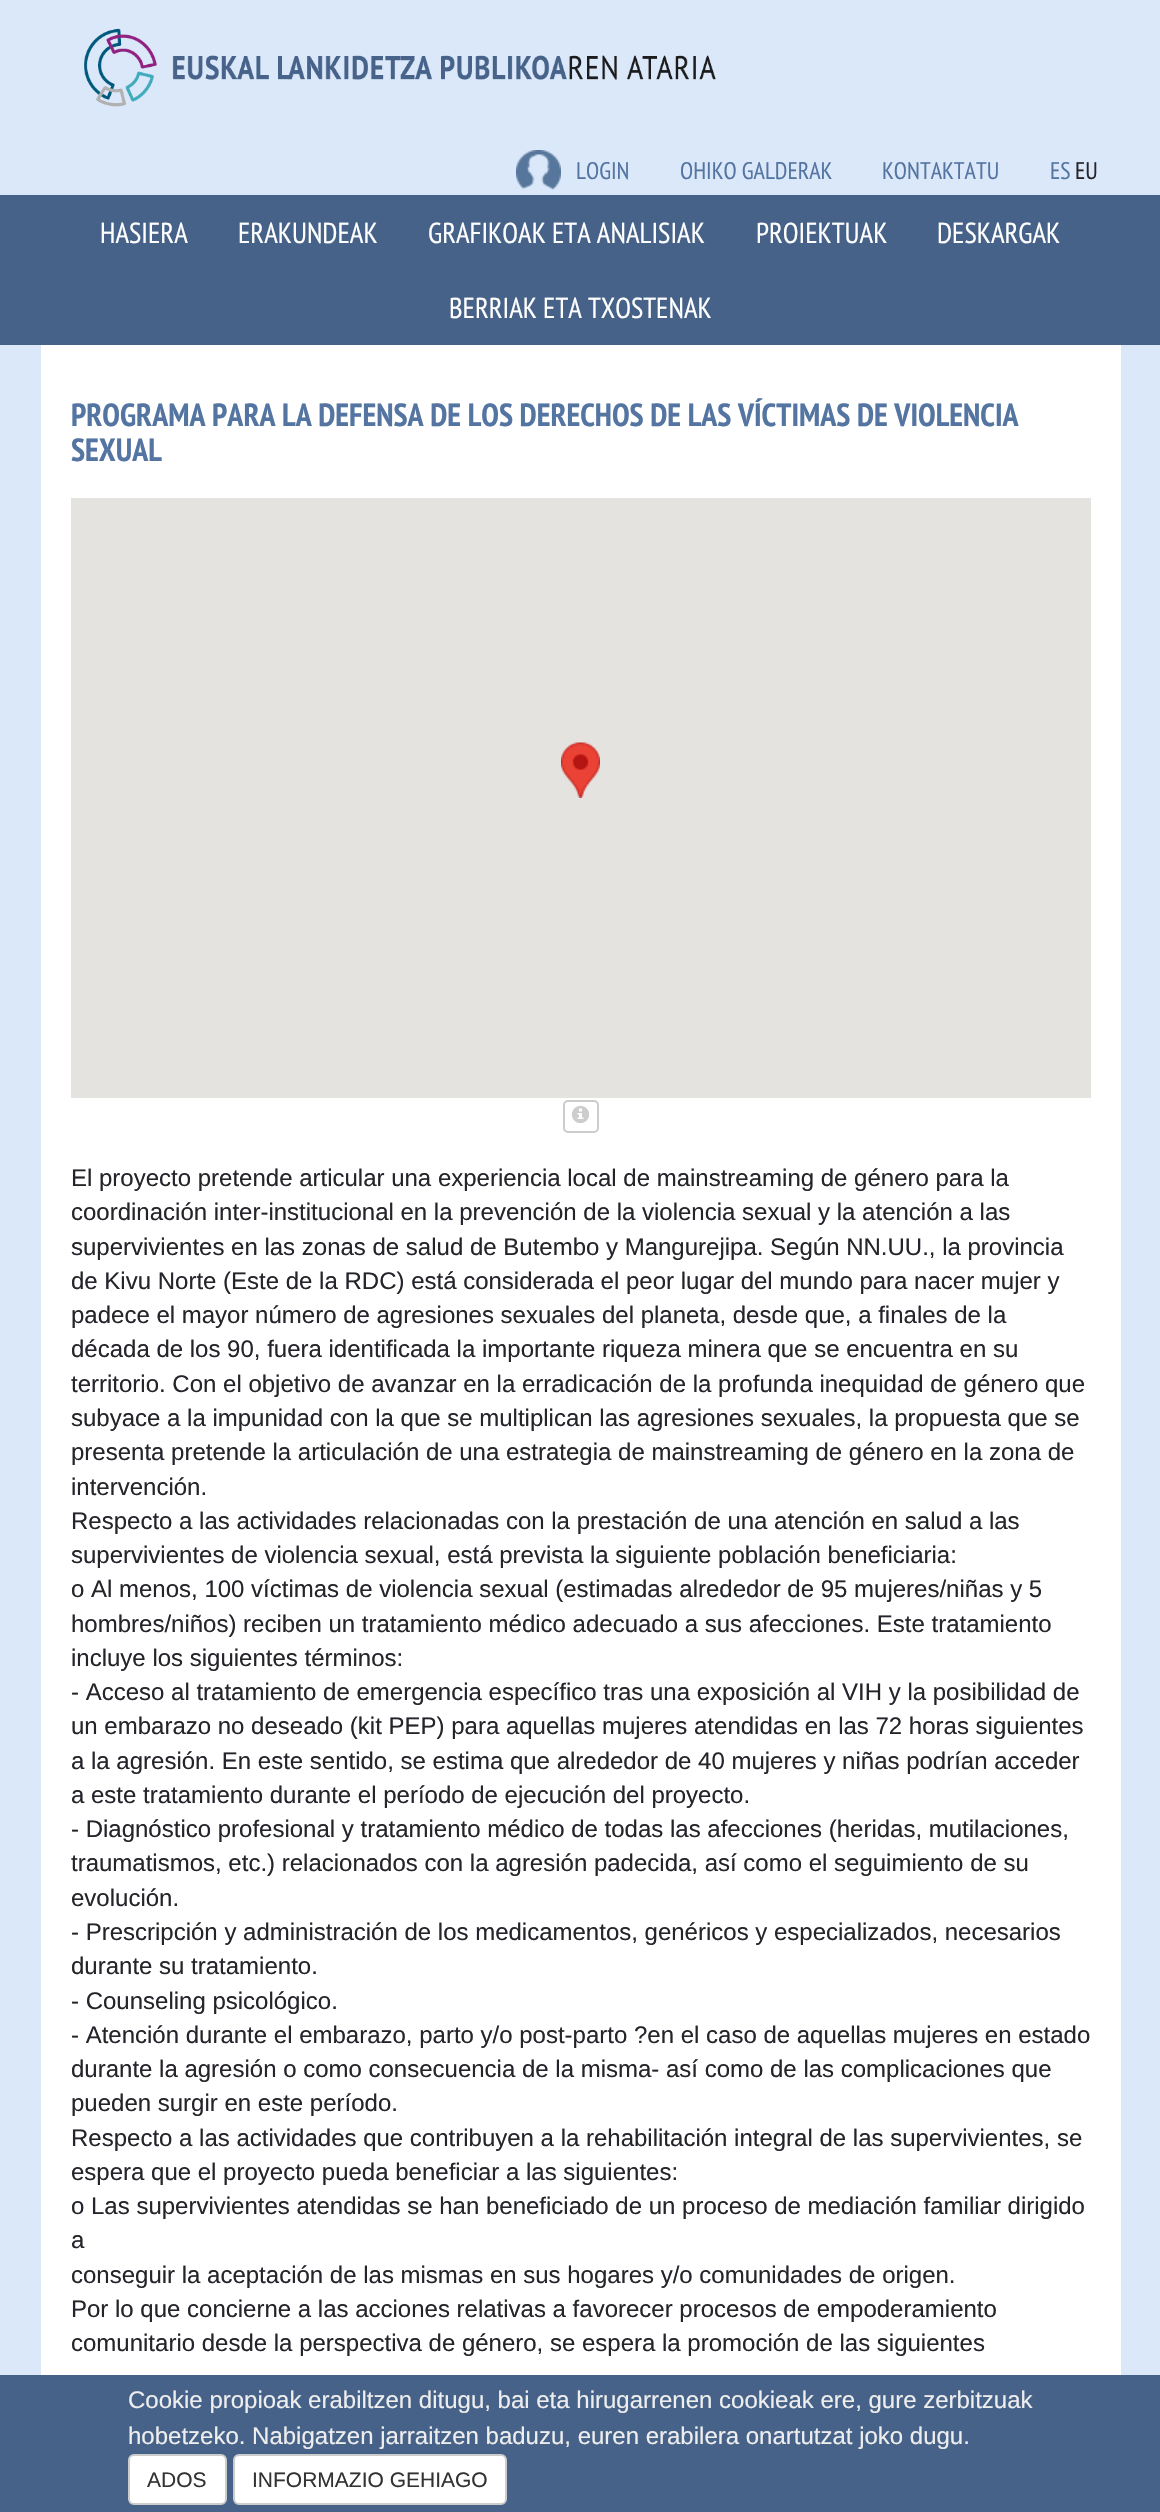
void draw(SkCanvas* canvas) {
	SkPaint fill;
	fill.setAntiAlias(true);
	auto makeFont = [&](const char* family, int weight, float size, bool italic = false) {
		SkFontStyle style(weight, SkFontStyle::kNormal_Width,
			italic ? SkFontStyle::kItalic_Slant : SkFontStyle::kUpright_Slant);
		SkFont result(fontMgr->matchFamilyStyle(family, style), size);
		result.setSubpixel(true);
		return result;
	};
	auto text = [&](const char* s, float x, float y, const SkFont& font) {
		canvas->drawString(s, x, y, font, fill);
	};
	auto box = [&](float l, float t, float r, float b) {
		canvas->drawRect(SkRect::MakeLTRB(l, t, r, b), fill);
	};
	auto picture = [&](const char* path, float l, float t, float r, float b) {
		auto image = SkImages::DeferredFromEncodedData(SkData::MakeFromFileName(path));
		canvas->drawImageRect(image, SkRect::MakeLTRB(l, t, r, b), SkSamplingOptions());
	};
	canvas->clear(0xFFDBE8F9);
	picture("image0.png", 84, 28, 716, 107);
	picture("image1.png", 516, 150, 561, 190);
	fill.setColor(0xFF466289);
	box(0, 195, 1160, 345);
	fill.setColor(0xFFFFFFFF);
	box(41, 345, 1121, 2375);
	fill.setColor(0xFFE5E3DF);
	box(71, 498, 1091, 1098);
	picture("image2.png", 561, 742, 600, 798);
	fill.setStyle(SkPaint::kStroke_Style);
	fill.setStrokeWidth(2);
	fill.setColor(0xFFCCCCCC);
	canvas->drawRoundRect(SkRect::MakeLTRB(564, 1101, 598, 1132), 4, 4, fill);
	picture("image3.png", 571, 1105, 590, 1124);
	fill.setStyle(SkPaint::kFill_Style);
	fill.setColor(0xFF466289);
	box(0, 2375, 1160, 2512);
	fill.setColor(0xFFFFFFFF);
	canvas->drawRoundRect(SkRect::MakeLTRB(129, 2455, 226, 2504), 5, 5, fill);
	fill.setStyle(SkPaint::kStroke_Style);
	fill.setColor(0xFFCCCCCC);
	canvas->drawRoundRect(SkRect::MakeLTRB(129, 2455, 226, 2504), 5, 5, fill);
	fill.setStyle(SkPaint::kFill_Style);
	fill.setColor(0xFFFFFFFF);
	canvas->drawRoundRect(SkRect::MakeLTRB(234, 2455, 506, 2504), 5, 5, fill);
	fill.setStyle(SkPaint::kStroke_Style);
	fill.setColor(0xFFCCCCCC);
	canvas->drawRoundRect(SkRect::MakeLTRB(234, 2455, 506, 2504), 5, 5, fill);
	auto font1 = makeFont("PT Sans Narrow", 400, 24);
	fill.setStyle(SkPaint::kFill_Style);
	fill.setColor(0xFF5475A2);
	text("LOGIN", 576, 179, font1);
	text("OHIKO GALDERAK", 680, 179, font1);
	text("KONTAKTATU", 882, 179, font1);
	text("ES", 1050, 179, font1);
	fill.setColor(0xFF24242A);
	text("EU", 1075, 179, font1);
	auto font2 = makeFont("PT Sans Narrow", 400, 28.75f);
	fill.setColor(0xFFFFFFFF);
	text("HASIERA", 100, 243, font2);
	text("ERAKUNDEAK", 238, 243, font2);
	text("GRAFIKOAK ETA ANALISIAK", 428, 243, font2);
	text("PROIEKTUAK", 756, 243, font2);
	text("DESKARGAK", 937, 243, font2);
	text("BERRIAK ETA TXOSTENAK", 449, 318, font2);
	auto font3 = makeFont("PT Sans Narrow", 700, 32);
	fill.setColor(0xFF5475A2);
	text("PROGRAMA PARA LA DEFENSA DE LOS DERECHOS DE LAS VÍCTIMAS DE VIOLENCIA", 71, 426, font3);
	text("SEXUAL", 71, 461, font3);
	auto font4 = makeFont("Liberation Sans", 400, 24);
	fill.setColor(0xFF24242A);
	text("El proyecto pretende articular una experiencia local de mainstreaming de género para la", 71, 1186, font4);
	text("coordinación inter-institucional en la prevención de la violencia sexual y la atención a las", 71, 1220, font4);
	text("supervivientes en las zonas de salud de Butembo y Mangurejipa. Según NN.UU., la provincia", 71, 1255, font4);
	text("de Kivu Norte (Este de la RDC) está considerada el peor lugar del mundo para nacer mujer y", 71, 1289, font4);
	text("padece el mayor número de agresiones sexuales del planeta, desde que, a finales de la", 71, 1323, font4);
	text("década de los 90, fuera identificada la importante riqueza minera que se encuentra en su", 71, 1357, font4);
	text("territorio. Con el objetivo de avanzar en la erradicación de la profunda inequidad de género que", 71, 1392, font4);
	text("subyace a la impunidad con la que se multiplican las agresiones sexuales, la propuesta que se", 71, 1426, font4);
	text("presenta pretende la articulación de una estrategia de mainstreaming de género en la zona de", 71, 1460, font4);
	text("intervención.", 71, 1495, font4);
	text("Respecto a las actividades relacionadas con la prestación de una atención en salud a las", 71, 1529, font4);
	text("supervivientes de violencia sexual, está prevista la siguiente población beneficiaria:", 71, 1563, font4);
	text("o Al menos, 100 víctimas de violencia sexual (estimadas alrededor de 95 mujeres/niñas y 5", 71, 1597, font4);
	text("hombres/niños) reciben un tratamiento médico adecuado a sus afecciones. Este tratamiento", 71, 1632, font4);
	text("incluye los siguientes términos:", 71, 1666, font4);
	text("- Acceso al tratamiento de emergencia específico tras una exposición al VIH y la posibilidad de", 71, 1700, font4);
	text("un embarazo no deseado (kit PEP) para aquellas mujeres atendidas en las 72 horas siguientes", 71, 1734, font4);
	text("a la agresión. En este sentido, se estima que alrededor de 40 mujeres y niñas podrían acceder", 71, 1769, font4);
	text("a este tratamiento durante el período de ejecución del proyecto.", 71, 1803, font4);
	text("- Diagnóstico profesional y tratamiento médico de todas las afecciones (heridas, mutilaciones,", 71, 1837, font4);
	text("traumatismos, etc.) relacionados con la agresión padecida, así como el seguimiento de su", 71, 1871, font4);
	text("evolución.", 71, 1906, font4);
	text("- Prescripción y administración de los medicamentos, genéricos y especializados, necesarios", 71, 1940, font4);
	text("durante su tratamiento.", 71, 1974, font4);
	text("- Counseling psicológico.", 71, 2009, font4);
	text("- Atención durante el embarazo, parto y/o post-parto ?en el caso de aquellas mujeres en estado", 71, 2043, font4);
	text("durante la agresión o como consecuencia de la misma- así como de las complicaciones que", 71, 2077, font4);
	text("pueden surgir en este período.", 71, 2111, font4);
	text("Respecto a las actividades que contribuyen a la rehabilitación integral de las supervivientes, se", 71, 2146, font4);
	text("espera que el proyecto pueda beneficiar a las siguientes:", 71, 2180, font4);
	text("o Las supervivientes atendidas se han beneficiado de un proceso de mediación familiar dirigido", 71, 2214, font4);
	text("a", 71, 2248, font4);
	text("conseguir la aceptación de las mismas en sus hogares y/o comunidades de origen.", 71, 2283, font4);
	text("Por lo que concierne a las acciones relativas a favorecer procesos de empoderamiento", 71, 2317, font4);
	text("comunitario desde la perspectiva de género, se espera la promoción de las siguientes", 71, 2351, font4);
	fill.setColor(0xFFEEEEEE);
	text("Cookie propioak erabiltzen ditugu, bai eta hirugarrenen cookieak ere, gure zerbitzuak", 128, 2408, font4);
	text("hobetzeko. Nabigatzen jarraitzen baduzu, euren erabilera onartutzat joko dugu.", 128, 2444, font4);
	auto font5 = makeFont("Liberation Sans", 400, 21);
	fill.setColor(0xFF333333);
	text("ADOS", 147, 2487, font5);
	text("INFORMAZIO GEHIAGO", 252, 2487, font5);
}
